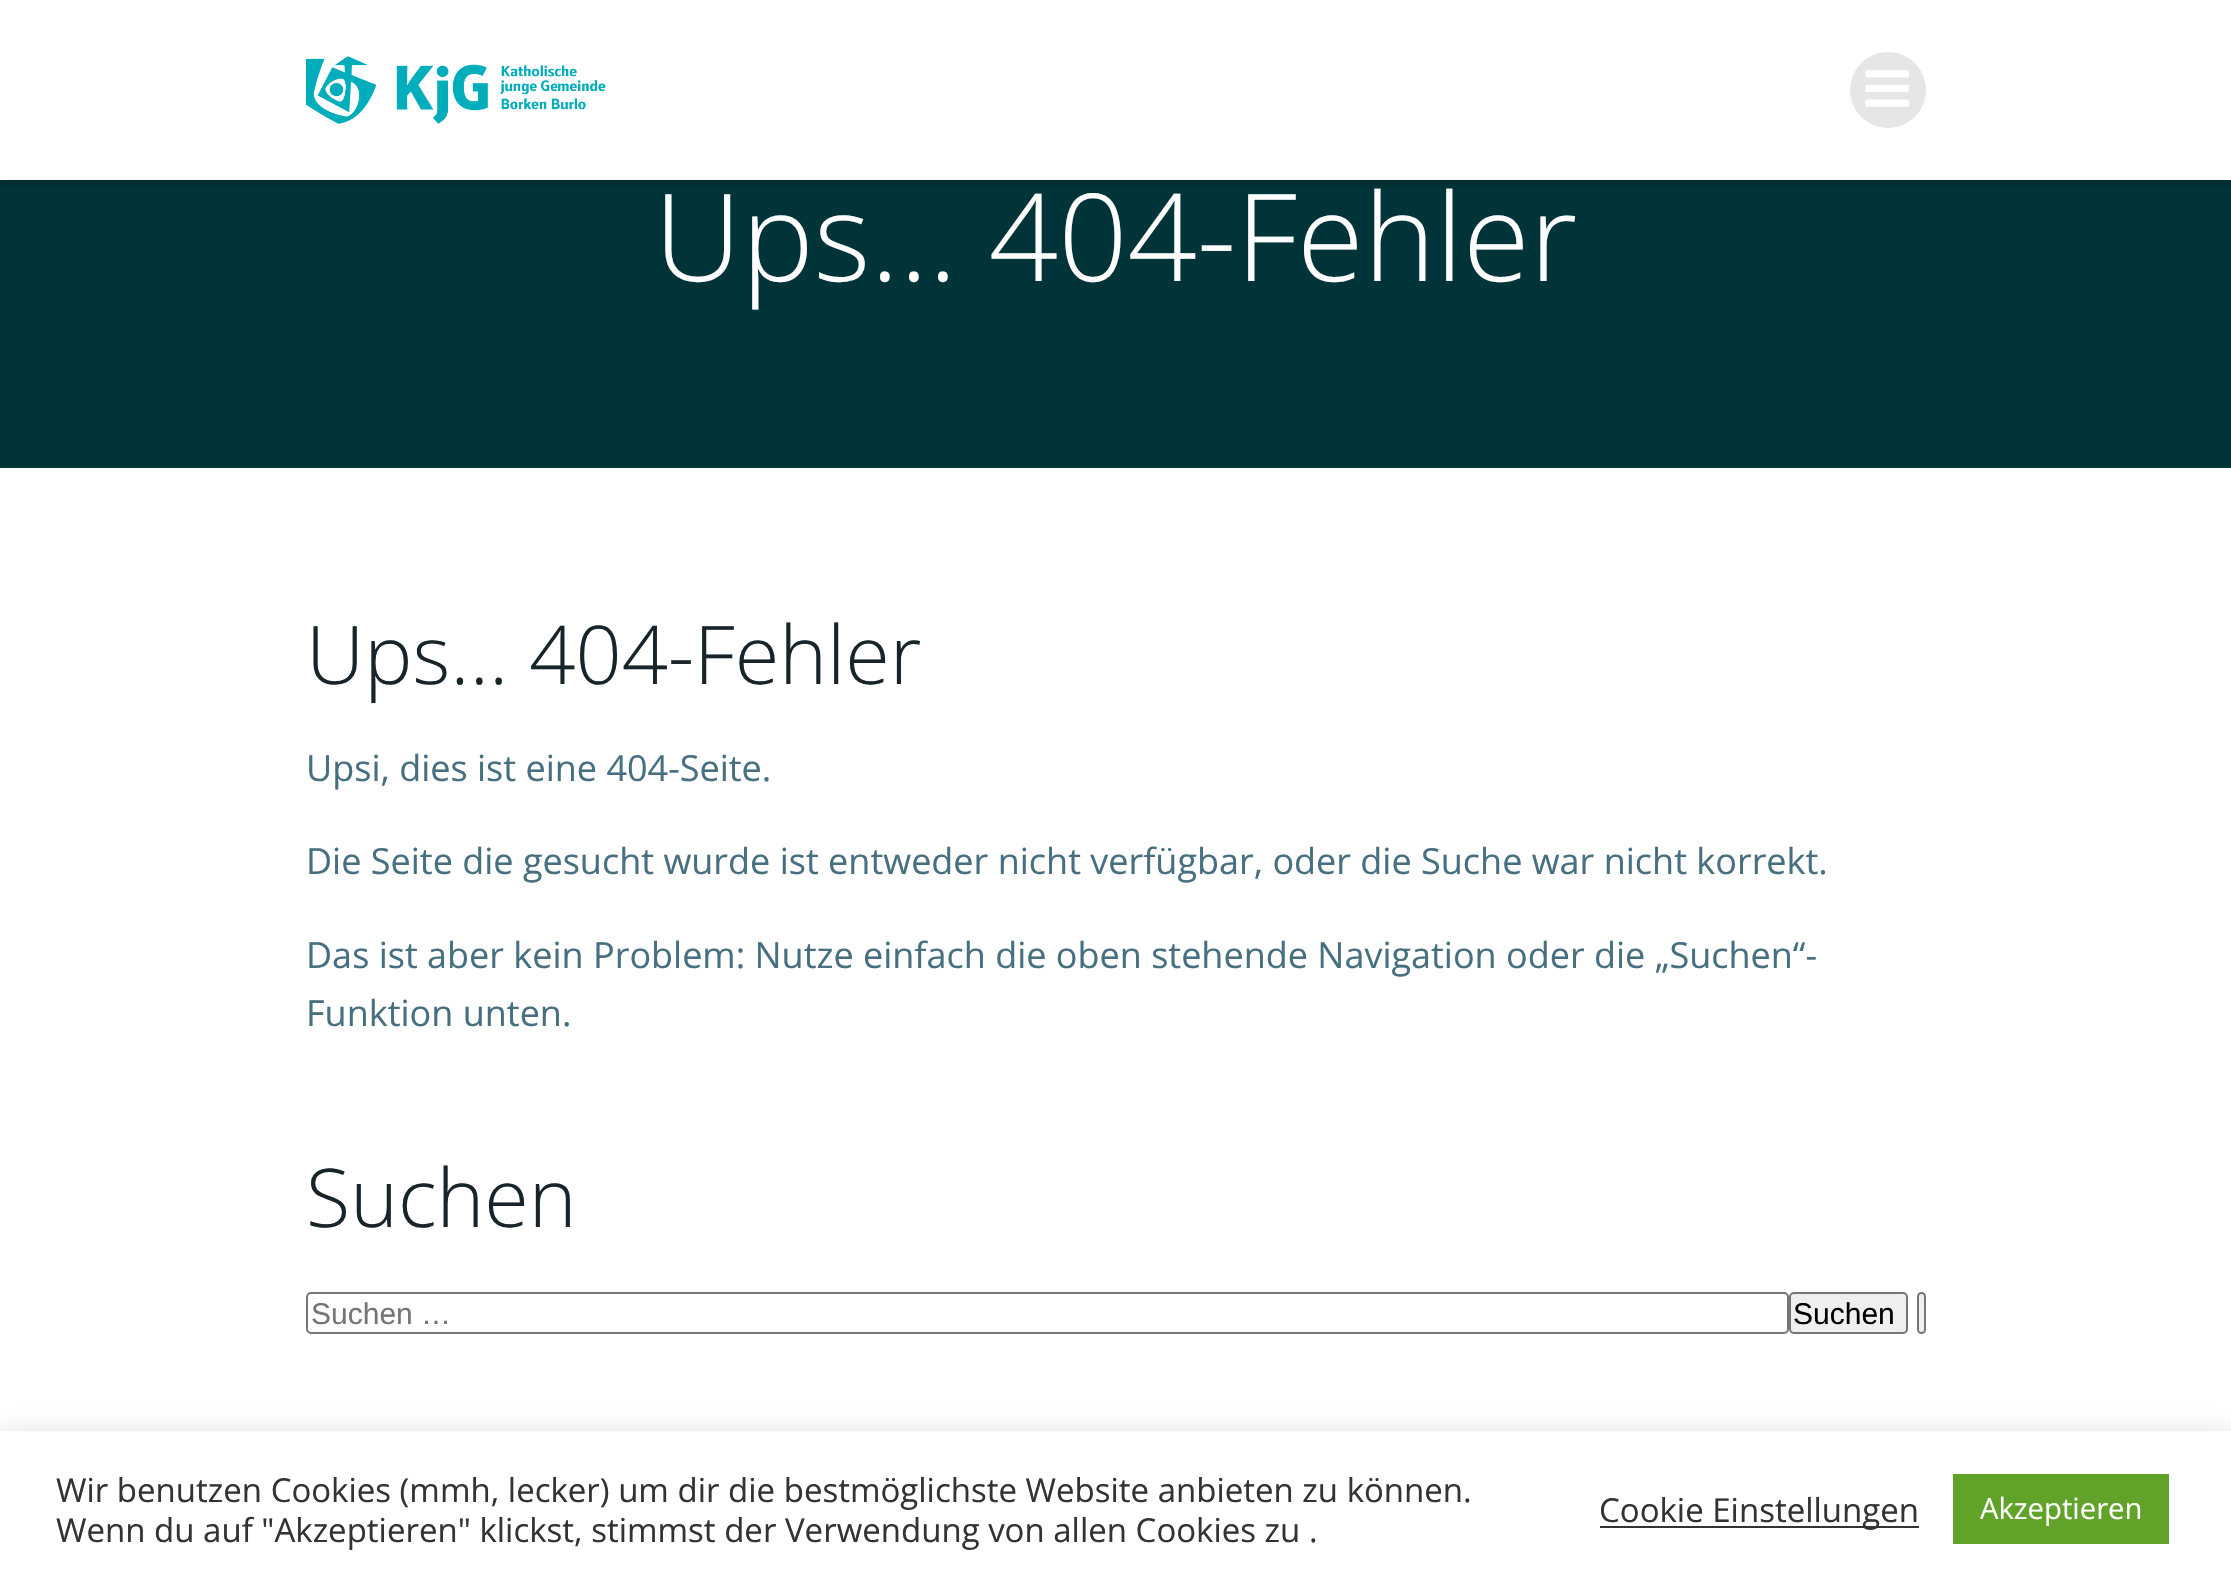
void draw(SkCanvas* canvas) {
	SkPaint fill;
	fill.setAntiAlias(true);
	auto makeFont = [&](const char* family, int weight, float size, bool italic = false) {
		SkFontStyle style(weight, SkFontStyle::kNormal_Width,
			italic ? SkFontStyle::kItalic_Slant : SkFontStyle::kUpright_Slant);
		SkFont result(fontMgr->matchFamilyStyle(family, style), size);
		result.setSubpixel(true);
		return result;
	};
	auto text = [&](const char* s, float x, float y, const SkFont& font) {
		canvas->drawString(s, x, y, font, fill);
	};
	auto box = [&](float l, float t, float r, float b) {
		canvas->drawRect(SkRect::MakeLTRB(l, t, r, b), fill);
	};
	auto picture = [&](const char* path, float l, float t, float r, float b) {
		auto image = SkImages::DeferredFromEncodedData(SkData::MakeFromFileName(path));
		canvas->drawImageRect(image, SkRect::MakeLTRB(l, t, r, b), SkSamplingOptions());
	};
	canvas->clear(0xFFFFFFFF);
	fill.setColor(0xFF003438);
	box(0, 180, 2231, 468);
	fill.setColor(0x80000000);
	fill.setMaskFilter(SkMaskFilter::MakeBlur(kNormal_SkBlurStyle, 4.5f));
	canvas->drawRect(SkRect::MakeLTRB(0, 0, 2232, 180), fill);
	fill.setMaskFilter(nullptr);
	fill.setColor(0xFFFFFFFF);
	box(0, 0, 2231, 180);
	picture("image0.png", 306, 56, 606, 124);
	fill.setColor(0xFFE6E6E6);
	canvas->drawCircle(1888, 90, 38, fill);
	picture("image1.png", 1865, 70, 1909, 107);
	fill.setStyle(SkPaint::kStroke_Style);
	fill.setStrokeWidth(2);
	fill.setColor(0xFF767676);
	canvas->drawRoundRect(SkRect::MakeLTRB(307, 1293, 1788, 1333), 4, 4, fill);
	fill.setStyle(SkPaint::kFill_Style);
	fill.setColor(0xFFEFEFEF);
	canvas->drawRoundRect(SkRect::MakeLTRB(1790, 1293, 1907, 1333), 4, 4, fill);
	fill.setStyle(SkPaint::kStroke_Style);
	fill.setColor(0xFF767676);
	canvas->drawRoundRect(SkRect::MakeLTRB(1790, 1293, 1907, 1333), 4, 4, fill);
	fill.setStyle(SkPaint::kFill_Style);
	fill.setColor(0xFFEFEFEF);
	canvas->drawRoundRect(SkRect::MakeLTRB(1918, 1293, 1925, 1333), 3.5f, 3.5f, fill);
	fill.setStyle(SkPaint::kStroke_Style);
	fill.setColor(0xFF767676);
	canvas->drawRoundRect(SkRect::MakeLTRB(1918, 1293, 1925, 1333), 3.5f, 3.5f, fill);
	fill.setStyle(SkPaint::kFill_Style);
	fill.setColor(0x4DACABAB);
	fill.setMaskFilter(SkMaskFilter::MakeBlur(kNormal_SkBlurStyle, 11));
	canvas->drawRect(SkRect::MakeLTRB(0, 1429, 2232, 1584), fill);
	fill.setMaskFilter(nullptr);
	fill.setColor(0xFFFFFFFF);
	box(0, 1431, 2231, 1586);
	fill.setColor(0xFF333333);
	box(1600, 1526, 1919, 1528);
	fill.setColor(0xFF61A229);
	box(1953, 1474, 2169, 1544);
	auto font1 = makeFont("Open Sans", 300, 121.5f);
	fill.setColor(0xFFFFFFFF);
	text("Ups… 404-Fehler", 654, 281, font1);
	auto font2 = makeFont("Open Sans", 300, 81);
	fill.setColor(0xFF17252A);
	text("Ups… 404-Fehler", 306, 684, font2);
	auto font3 = makeFont("Open Sans", 400, 36);
	fill.setColor(0xFF46707F);
	text("Upsi, dies ist eine 404-Seite.", 306, 781, font3);
	text("Die Seite die gesucht wurde ist entweder nicht verfügbar, oder die Suche war nicht korrekt.", 306, 874, font3);
	text("Das ist aber kein Problem: Nutze einfach die oben stehende Navigation oder die „Suchen“-", 306, 968, font3);
	text("Funktion unten.", 306, 1026, font3);
	fill.setColor(0xFF17252A);
	text("Suchen", 306, 1227, font2);
	auto font4 = makeFont("Liberation Sans", 400, 30);
	fill.setColor(0xFF757575);
	text("Suchen …", 311, 1324, font4);
	fill.setColor(0xFF000000);
	text("Suchen", 1793, 1324, font4);
	auto font5 = makeFont("Open Sans", 400, 33);
	fill.setColor(0xFF333333);
	text("Wir benutzen Cookies (mmh, lecker) um dir die bestmöglichste Website anbieten zu können.", 56, 1502, font5);
	text("Wenn du auf \"Akzeptieren\" klickst, stimmst der Verwendung von allen Cookies zu .", 56, 1542, font5);
	text("Cookie Einstellungen", 1599, 1522, font5);
	auto font6 = makeFont("Open Sans", 400, 29.25f);
	fill.setColor(0xFFFFFFFF);
	text("Akzeptieren", 1980, 1519, font6);
}
